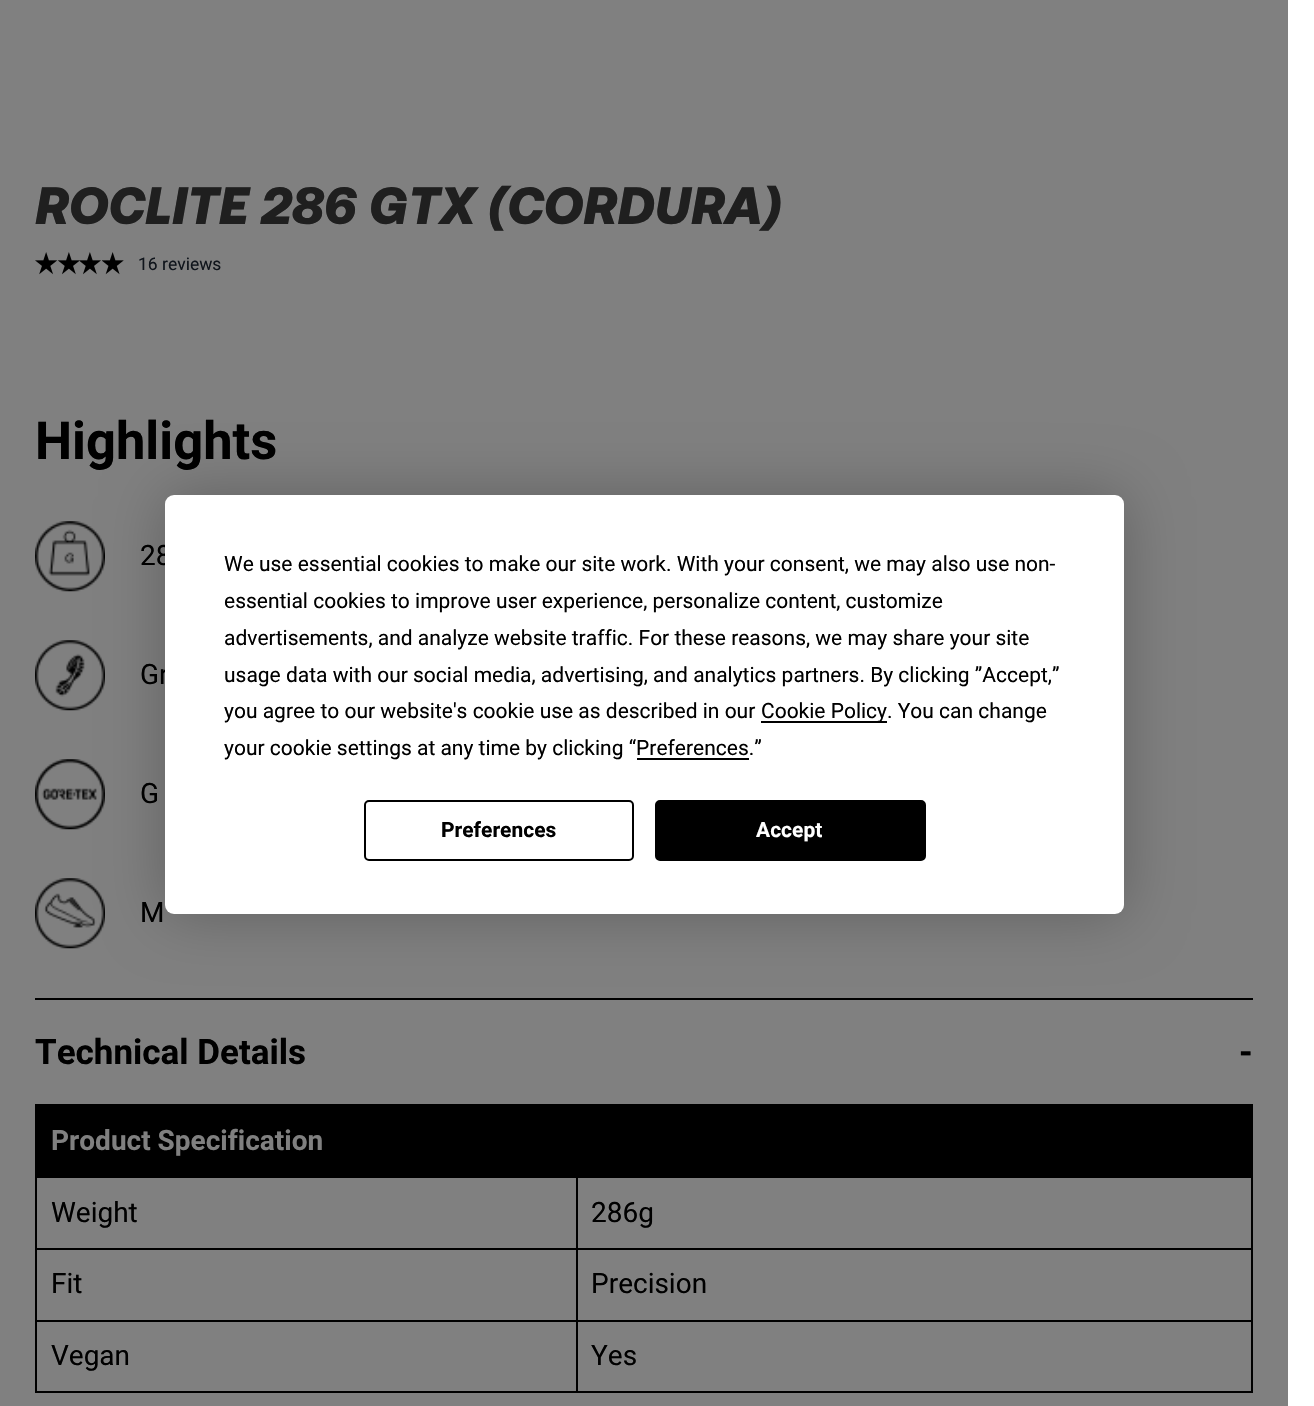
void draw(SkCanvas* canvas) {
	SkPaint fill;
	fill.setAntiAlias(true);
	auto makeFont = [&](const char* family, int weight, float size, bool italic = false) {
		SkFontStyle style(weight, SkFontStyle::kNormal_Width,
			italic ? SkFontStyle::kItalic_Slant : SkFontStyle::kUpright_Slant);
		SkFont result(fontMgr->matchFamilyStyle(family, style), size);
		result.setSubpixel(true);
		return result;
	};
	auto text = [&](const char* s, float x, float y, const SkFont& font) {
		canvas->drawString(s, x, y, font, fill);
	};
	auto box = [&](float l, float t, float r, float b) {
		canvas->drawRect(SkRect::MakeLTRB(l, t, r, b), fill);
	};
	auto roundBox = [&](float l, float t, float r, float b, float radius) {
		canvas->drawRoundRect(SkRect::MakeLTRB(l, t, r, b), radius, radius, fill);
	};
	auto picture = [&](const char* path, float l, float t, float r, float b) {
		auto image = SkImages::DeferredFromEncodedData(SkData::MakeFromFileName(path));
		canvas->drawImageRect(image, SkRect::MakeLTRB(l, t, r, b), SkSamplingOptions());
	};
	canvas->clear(0xFFFFFFFF);
	fill.setColor(0xFF808080);
	box(0, 0, 1288, 1406);
	picture("image0.png", 35, 252, 58, 275);
	picture("image1.png", 58, 252, 79, 275);
	picture("image2.png", 79, 252, 101, 275);
	picture("image3.png", 102, 252, 124, 275);
	picture("image4.png", 35, 521, 105, 592);
	picture("image5.png", 35, 640, 105, 711);
	picture("image6.png", 35, 759, 105, 830);
	picture("image7.png", 35, 878, 105, 949);
	fill.setColor(0xFF000000);
	box(35, 998, 1253, 1000);
	box(35, 1104, 1253, 1106);
	box(35, 1176, 1253, 1178);
	box(35, 1104, 37, 1178);
	box(37, 1106, 1253, 1176);
	box(576, 1248, 1253, 1250);
	box(576, 1320, 1253, 1322);
	box(1251, 1320, 1253, 1393);
	box(576, 1391, 1253, 1393);
	box(576, 1320, 578, 1393);
	box(35, 1320, 578, 1322);
	box(576, 1248, 578, 1321);
	box(35, 1248, 578, 1250);
	box(576, 1176, 578, 1250);
	box(35, 1391, 578, 1393);
	box(35, 1320, 37, 1393);
	box(35, 1176, 37, 1321);
	box(1251, 1176, 1253, 1321);
	fill.setColor(0x40000000);
	fill.setMaskFilter(SkMaskFilter::MakeBlur(kNormal_SkBlurStyle, 30.5f));
	canvas->drawRoundRect(SkRect::MakeLTRB(165, 495, 1124, 914), 9, 9, fill);
	fill.setMaskFilter(nullptr);
	auto font1 = makeFont("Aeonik", 900, 52.5f, true);
	fill.setColor(0xFF1F1F1F);
	text("ROCLITE 286 GTX (CORDURA)", 35, 224, font1);
	auto font2 = makeFont("Roboto", 400, 17.5f);
	fill.setColor(0xFF10151C);
	text("16 reviews", 138, 270, font2);
	auto font3 = makeFont("Roboto", 700, 52.5f);
	fill.setColor(0xFF000000);
	text("Highlights", 35, 459, font3);
	auto font4 = makeFont("Roboto", 400, 28);
	text("28", 140, 565, font4);
	text("Gr", 140, 684, font4);
	text("G", 140, 803, font4);
	text("M", 140, 922, font4);
	auto font5 = makeFont("Roboto", 700, 35);
	text("Technical Details", 35, 1064, font5);
	text("-", 1239, 1064, font5);
	auto font6 = makeFont("Roboto", 700, 28);
	fill.setColor(0xFF808080);
	text("Product Specification", 51, 1150, font6);
	fill.setColor(0xFF000000);
	text("Weight", 51, 1222, font4);
	text("286g", 591, 1222, font4);
	text("Fit", 51, 1293, font4);
	text("Precision", 591, 1293, font4);
	text("Vegan", 51, 1365, font4);
	text("Yes", 591, 1365, font4);
	fill.setColor(0xFFFFFFFF);
	roundBox(165, 495, 1124, 914, 9);
	auto font7 = makeFont("Roboto", 400, 21);
	fill.setColor(0xFF000000);
	text("We use essential cookies to make our site work. With your consent, we may also use non-", 224, 571, font7);
	text("essential cookies to improve user experience, personalize content, customize", 224, 608, font7);
	text("advertisements, and analyze website traffic. For these reasons, we may share your site", 224, 645, font7);
	text("usage data with our social media, advertising, and analytics partners. By clicking ”Accept,”", 224, 682, font7);
	text("you agree to our website's cookie use as described in our", 224, 718, font7);
	box(761, 721, 887, 723);
	text("Cookie Policy. You can change", 761, 718, font7);
	text("your cookie settings at any time by clicking “Preferences.”", 224, 755, font7);
	box(637, 758, 749, 760);
	fill.setStyle(SkPaint::kStroke_Style);
	fill.setStrokeWidth(2);
	canvas->drawRoundRect(SkRect::MakeLTRB(365, 801, 633, 860), 4, 4, fill);
	auto font8 = makeFont("Roboto", 700, 21);
	fill.setStyle(SkPaint::kFill_Style);
	text("Preferences", 441, 837, font8);
	canvas->drawRoundRect(SkRect::MakeLTRB(656, 801, 925, 860), 4, 4, fill);
	fill.setStyle(SkPaint::kStroke_Style);
	canvas->drawRoundRect(SkRect::MakeLTRB(656, 801, 925, 860), 4, 4, fill);
	fill.setStyle(SkPaint::kFill_Style);
	fill.setColor(0xFFFFFFFF);
	text("Accept", 756, 837, font8);
}
